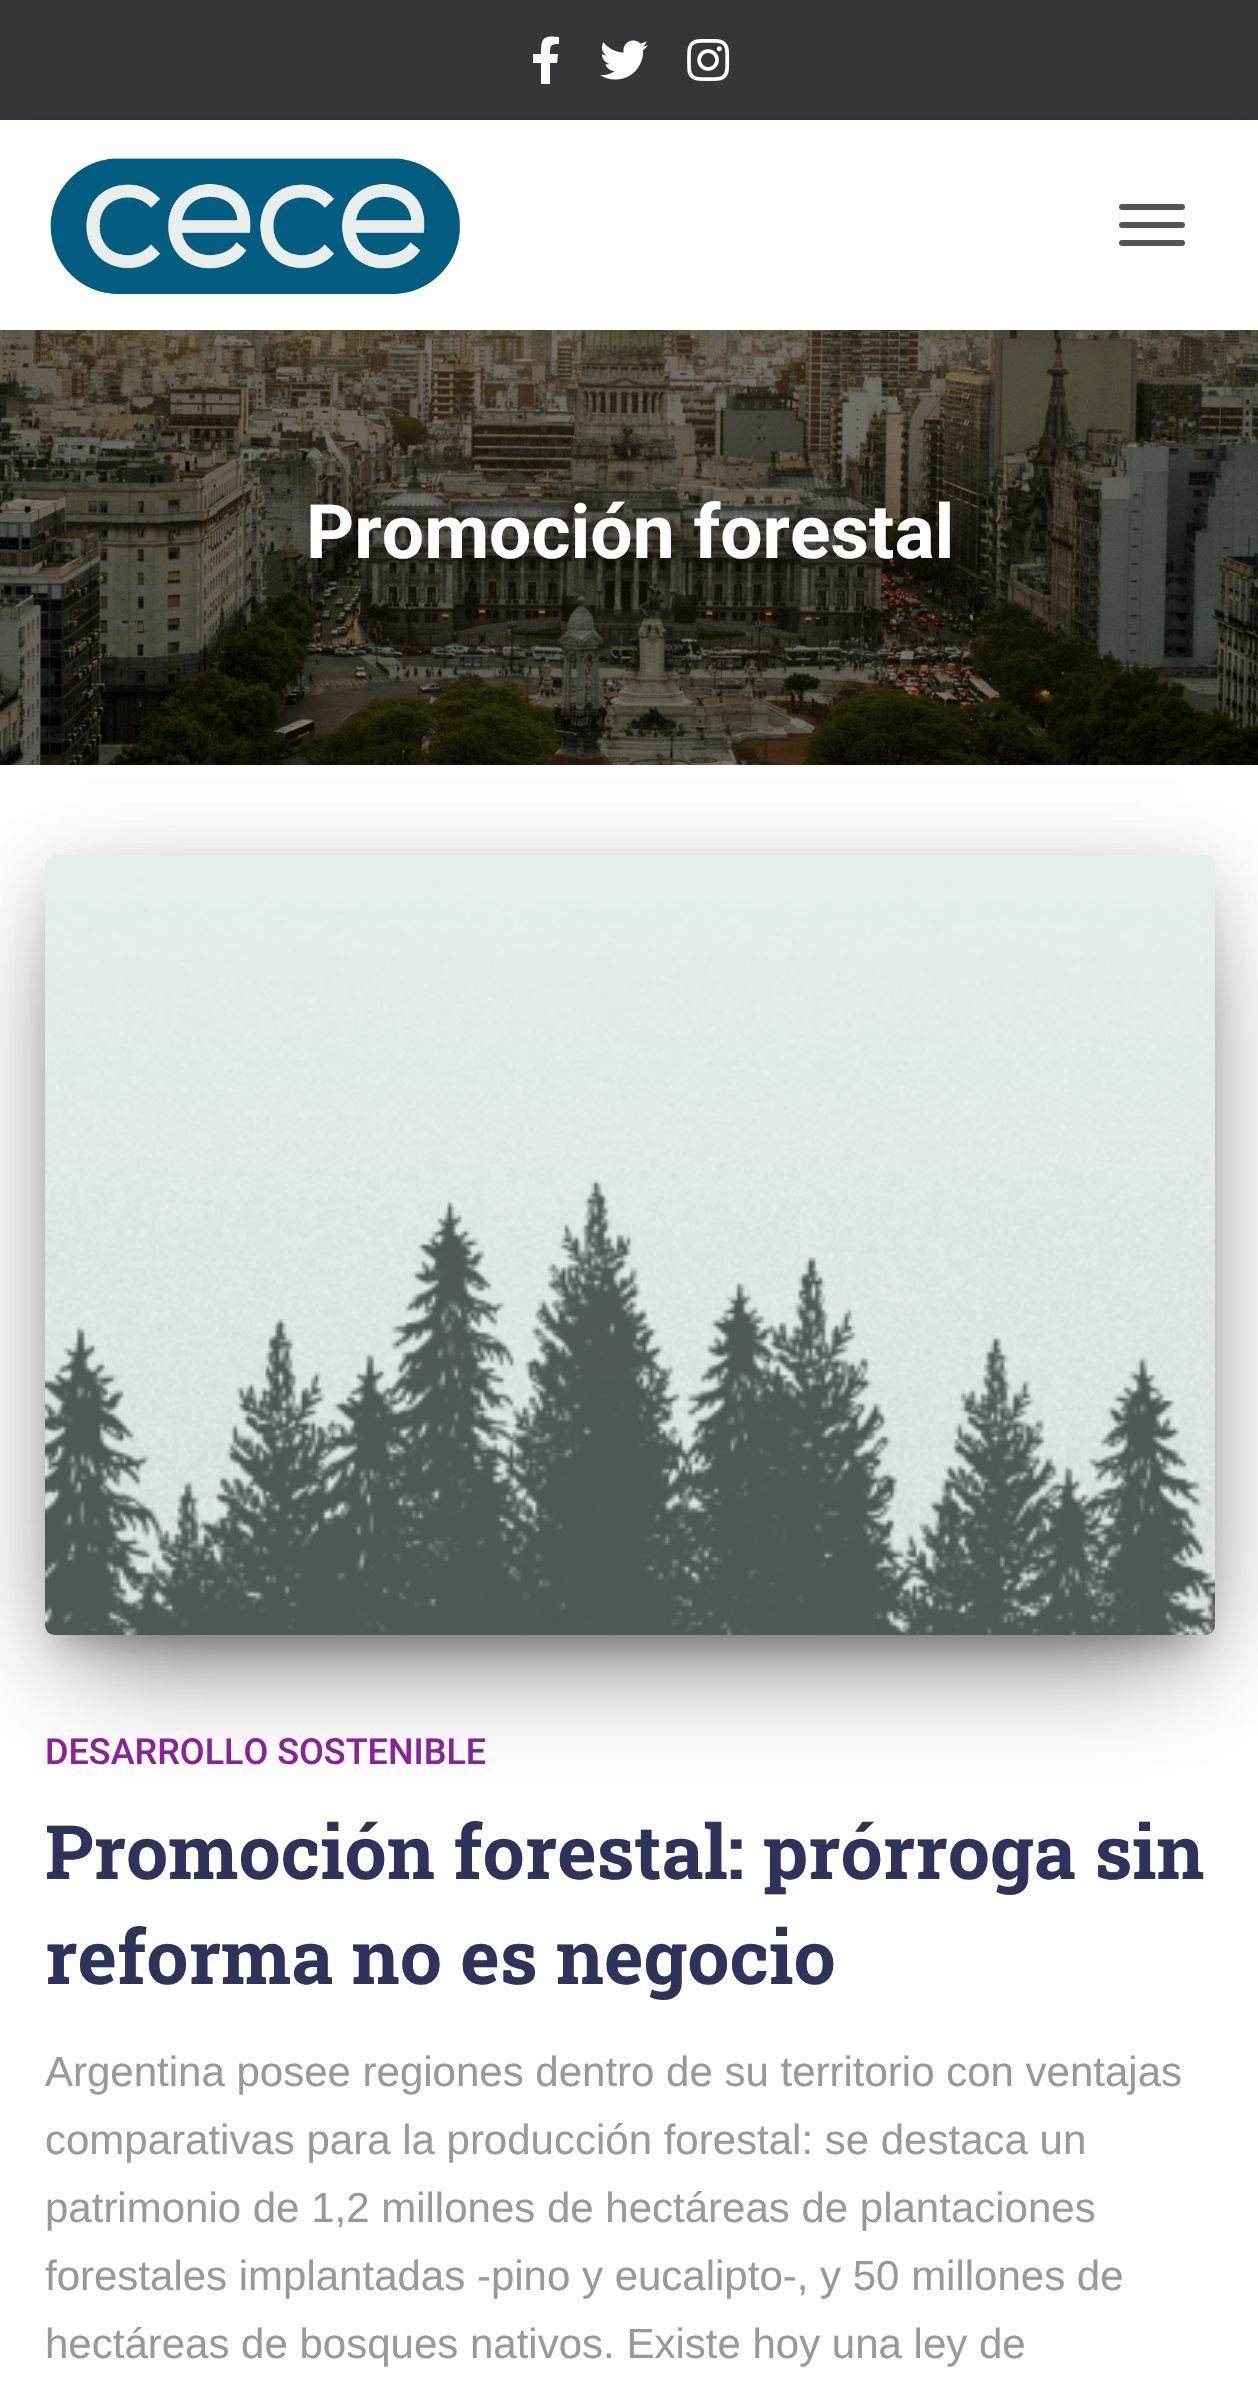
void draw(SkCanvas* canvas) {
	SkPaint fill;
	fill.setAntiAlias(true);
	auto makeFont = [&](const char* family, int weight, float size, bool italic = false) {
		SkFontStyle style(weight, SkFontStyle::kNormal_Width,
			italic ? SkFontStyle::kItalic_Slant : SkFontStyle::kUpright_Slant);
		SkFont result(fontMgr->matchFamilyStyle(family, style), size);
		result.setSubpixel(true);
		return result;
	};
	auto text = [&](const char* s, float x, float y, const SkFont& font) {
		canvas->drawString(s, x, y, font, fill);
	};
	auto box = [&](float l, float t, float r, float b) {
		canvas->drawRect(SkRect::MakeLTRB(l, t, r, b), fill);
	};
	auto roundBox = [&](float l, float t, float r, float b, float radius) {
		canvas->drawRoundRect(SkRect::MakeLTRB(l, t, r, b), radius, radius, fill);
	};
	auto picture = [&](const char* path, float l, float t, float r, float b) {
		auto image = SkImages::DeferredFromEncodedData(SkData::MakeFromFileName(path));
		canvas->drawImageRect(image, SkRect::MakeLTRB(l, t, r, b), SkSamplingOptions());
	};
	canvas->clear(0xFF363537);
	fill.setColor(0xFFFFFFFF);
	canvas->drawPath(SkPathBuilder().moveTo(557, 63).lineTo(550, 63).lineTo(550, 84).lineTo(541, 84).lineTo(541, 63).lineTo(533, 63).lineTo(533, 54).lineTo(541, 54).cubicTo(541, 38, 543, 35, 559, 37).lineTo(559, 44).cubicTo(550, 44, 550, 46, 550, 54).lineTo(558, 54).close().detach(), fill);
	picture("image0.png", 600, 40, 648, 80);
	picture("image1.png", 687, 39, 730, 81);
	picture("image3.png", 0, 330, 1258, 765);
	fill.setColor(0x6B000000);
	fill.setMaskFilter(SkMaskFilter::MakeBlur(kNormal_SkBlurStyle, 15));
	canvas->drawRect(SkRect::MakeLTRB(18, 141, 1242, 315), fill);
	fill.setMaskFilter(nullptr);
	fill.setColor(0xFFFFFFFF);
	box(0, 120, 1258, 330);
	picture("image2.png", 50, 158, 460, 294);
	fill.setColor(0xFF555555);
	roundBox(1119, 204, 1185, 210, 3);
	roundBox(1119, 222, 1185, 228, 3);
	roundBox(1119, 240, 1185, 246, 3);
	fill.setColor(0xFFFFFFFF);
	box(0, 765, 1258, 2407);
	fill.setColor(0x33000000);
	fill.setMaskFilter(SkMaskFilter::MakeBlur(kNormal_SkBlurStyle, 15));
	canvas->drawRect(SkRect::MakeLTRB(60, 894, 1200, 1644), fill);
	fill.setMaskFilter(nullptr);
	fill.setColor(0x1F000000);
	fill.setMaskFilter(SkMaskFilter::MakeBlur(kNormal_SkBlurStyle, 37.5f));
	canvas->drawRoundRect(SkRect::MakeLTRB(45, 867, 1215, 1647), 9, 9, fill);
	fill.setMaskFilter(nullptr);
	fill.setColor(0x8F000000);
	fill.setMaskFilter(SkMaskFilter::MakeBlur(kNormal_SkBlurStyle, 57));
	canvas->drawRect(SkRect::MakeLTRB(81, 939, 1179, 1647), fill);
	fill.setMaskFilter(nullptr);
	picture("image4.png", 45, 855, 1215, 1635);
	auto font1 = makeFont("Roboto", 700, 75);
	fill.setColor(0xFFFFFFFF);
	text("Promoción forestal", 306, 558, font1);
	auto font2 = makeFont("Roboto", 500, 36);
	fill.setColor(0xFF89229B);
	text("DESARROLLO SOSTENIBLE", 45, 1764, font2);
	auto font3 = makeFont("Roboto Slab", 700, 75);
	fill.setColor(0xFF2D3359);
	text("Promoción forestal: prórroga sin", 45, 1879, font3);
	text("reforma no es negocio", 45, 1984, font3);
	auto font4 = makeFont("Liberation Sans", 400, 42);
	fill.setColor(0xFF999999);
	text("Argentina posee regiones dentro de su territorio con ventajas", 45, 2086, font4);
	text("comparativas para la producción forestal: se destaca un", 45, 2154, font4);
	text("patrimonio de 1,2 millones de hectáreas de plantaciones", 45, 2222, font4);
	text("forestales implantadas -pino y eucalipto-, y 50 millones de", 45, 2290, font4);
	text("hectáreas de bosques nativos. Existe hoy una ley de", 45, 2358, font4);
}
